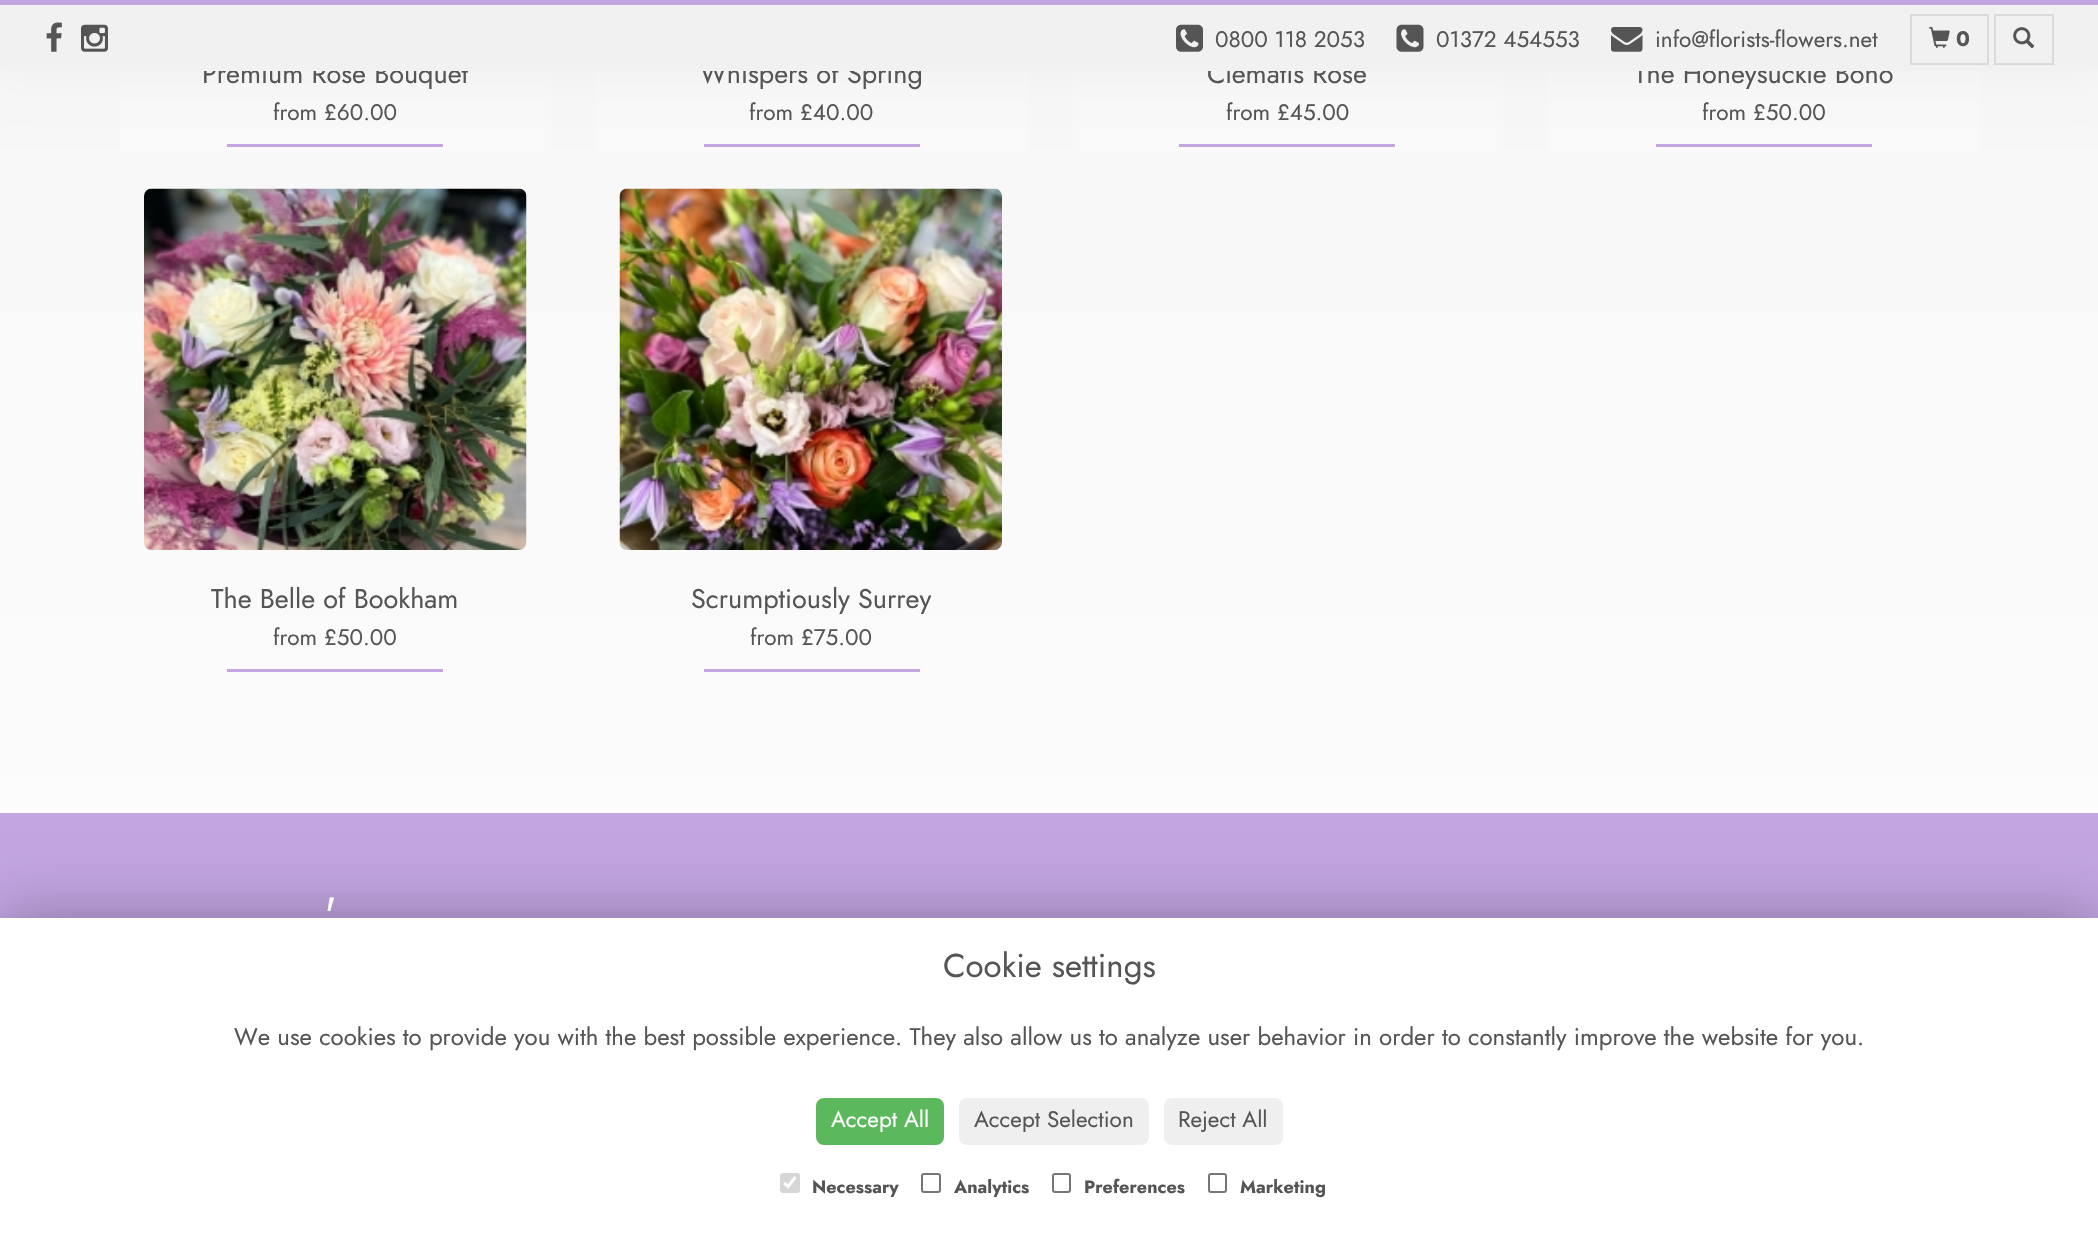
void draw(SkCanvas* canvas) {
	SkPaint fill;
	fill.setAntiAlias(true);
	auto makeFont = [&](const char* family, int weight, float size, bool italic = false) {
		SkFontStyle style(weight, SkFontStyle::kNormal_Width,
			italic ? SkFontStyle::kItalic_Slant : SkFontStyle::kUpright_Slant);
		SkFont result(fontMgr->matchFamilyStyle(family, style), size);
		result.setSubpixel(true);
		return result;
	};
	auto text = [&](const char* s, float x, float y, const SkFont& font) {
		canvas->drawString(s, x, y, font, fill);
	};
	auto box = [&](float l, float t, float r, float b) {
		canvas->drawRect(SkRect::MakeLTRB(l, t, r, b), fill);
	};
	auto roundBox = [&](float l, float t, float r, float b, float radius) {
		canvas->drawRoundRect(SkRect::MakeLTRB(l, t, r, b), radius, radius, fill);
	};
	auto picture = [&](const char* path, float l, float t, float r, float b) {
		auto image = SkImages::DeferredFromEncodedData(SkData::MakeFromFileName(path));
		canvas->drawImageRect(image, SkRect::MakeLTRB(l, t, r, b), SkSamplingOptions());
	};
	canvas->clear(0xFFFFFFFF);
	{
		const SkColor colors[] = {0xFFF1F1F1, 0xFFFFFFFF};
		const float stops[] = {0, 1};
		const SkPoint ends[] = {{1049, -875}, {1049, 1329}};
		fill.setShader(SkGradientShader::MakeLinear(ends, colors, stops, 2, SkTileMode::kClamp));
		fill.setAlpha(255);
	}
	box(0, 71, 2098, 813);
	fill.setShader(nullptr);
	fill.setColor(0xFFF9F9F9);
	roundBox(120, -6, 551, 159, 6);
	roundBox(596, -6, 1028, 159, 6);
	roundBox(1073, -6, 1503, 159, 6);
	roundBox(1548, -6, 1980, 159, 6);
	fill.setColor(0xFFEEEEEE);
	fill.setMaskFilter(SkMaskFilter::MakeBlur(kNormal_SkBlurStyle, 22.5f));
	canvas->drawRect(SkRect::MakeLTRB(0, 0, 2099, 71), fill);
	fill.setMaskFilter(nullptr);
	fill.setColor(0xFFC2A5E1);
	box(0, 0, 2098, 5);
	box(227, 144, 443, 147);
	box(704, 144, 920, 147);
	box(1179, 144, 1395, 147);
	box(1656, 144, 1872, 147);
	picture("image7.png", 144, 188, 527, 550);
	box(227, 669, 443, 672);
	picture("image8.png", 619, 188, 1002, 550);
	box(704, 669, 920, 672);
	box(0, 813, 2098, 918);
	fill.setColor(0x4F000000);
	fill.setMaskFilter(SkMaskFilter::MakeBlur(kNormal_SkBlurStyle, 30));
	canvas->drawRect(SkRect::MakeLTRB(0, 918, 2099, 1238), fill);
	fill.setMaskFilter(nullptr);
	fill.setColor(0xFFFFFFFF);
	box(0, 918, 2098, 1237);
	fill.setColor(0xFF5CB85C);
	roundBox(816, 1098, 944, 1145, 8);
	fill.setColor(0xFFEFEFEF);
	roundBox(959, 1098, 1149, 1145, 8);
	roundBox(1164, 1098, 1283, 1145, 8);
	fill.setColor(0xFFD6D6D6);
	roundBox(780, 1173, 800, 1193, 3);
	fill.setStyle(SkPaint::kStroke_Style);
	fill.setStrokeWidth(3.1f);
	fill.setColor(0xFFFFFFFF);
	canvas->drawPath(SkPathBuilder().moveTo(784, 1183).lineTo(788, 1186.5f).lineTo(795.5f, 1177).detach(), fill);
	fill.setStrokeWidth(2);
	fill.setColor(0xFF767676);
	canvas->drawRoundRect(SkRect::MakeLTRB(922, 1174, 940, 1192), 2, 2, fill);
	canvas->drawRoundRect(SkRect::MakeLTRB(1053, 1174, 1070, 1192), 2, 2, fill);
	canvas->drawRoundRect(SkRect::MakeLTRB(1209, 1174, 1226, 1192), 2, 2, fill);
	auto font1 = makeFont("Jost", 400, 27);
	fill.setStyle(SkPaint::kFill_Style);
	fill.setColor(0xFF555555);
	text("Premium Rose Bouquet", 202, 83, font1);
	auto font2 = makeFont("Jost", 400, 22.5f);
	text("from £60.00", 273, 120, font2);
	text("Whispers of Spring", 700, 83, font1);
	text("from £40.00", 749, 120, font2);
	text("Clematis Rose", 1207, 83, font1);
	text("from £45.00", 1226, 120, font2);
	text("The Honeysuckle Boho", 1634, 83, font1);
	fill.setColor(0xFFF1F1F1);
	box(0, 5, 2098, 71);
	fill.setStyle(SkPaint::kStroke_Style);
	fill.setColor(0xFFDADADA);
	canvas->drawRect(SkRect::MakeLTRB(1995, 15, 2053, 64), fill);
	picture("image6.png", 2013, 27, 2035, 49);
	canvas->drawRect(SkRect::MakeLTRB(1911, 15, 1988, 64), fill);
	picture("image5.png", 1929, 27, 1950, 48);
	picture("image4.png", 1611, 27, 1643, 52);
	fill.setStyle(SkPaint::kFill_Style);
	fill.setColor(0xFF555555);
	text("info@florists-flowers.net", 1655, 47, font2);
	picture("image3.png", 1396, 24, 1424, 52);
	text("01372 454553", 1436, 47, font2);
	picture("image2.png", 1176, 24, 1203, 52);
	text("0800 118 2053", 1215, 47, font2);
	auto font3 = makeFont("Jost", 700, 21);
	text("0", 1956, 46, font3);
	picture("image1.png", 81, 24, 108, 52);
	picture("image0.png", 46, 22, 62, 52);
	text("from £50.00", 1702, 120, font2);
	text("The Belle of Bookham", 211, 608, font1);
	text("from £50.00", 273, 645, font2);
	text("Scrumptiously Surrey", 691, 608, font1);
	text("from £75.00", 750, 645, font2);
	auto font4 = makeFont("Jost", 400, 45);
	fill.setColor(0xFFFFFFFF);
	text("'", 324, 929, font4);
	auto font5 = makeFont("Jost", 400, 33);
	fill.setColor(0xFF555555);
	text("Cookie settings", 943, 977, font5);
	auto font6 = makeFont("Jost", 400, 24);
	text("We use cookies to provide you with the best possible experience. They also allow us to analyze user behavior in order to constantly improve the website for you.", 234, 1045, font6);
	fill.setColor(0xFFFFFFFF);
	text("Accept All", 831, 1127, font2);
	fill.setColor(0xFF555555);
	text("Accept Selection", 974, 1127, font2);
	text("Reject All", 1178, 1127, font2);
	auto font7 = makeFont("Jost", 700, 18);
	text("Necessary", 812, 1193, font7);
	text("Analytics", 954, 1193, font7);
	text("Preferences", 1084, 1193, font7);
	text("Marketing", 1240, 1193, font7);
}
